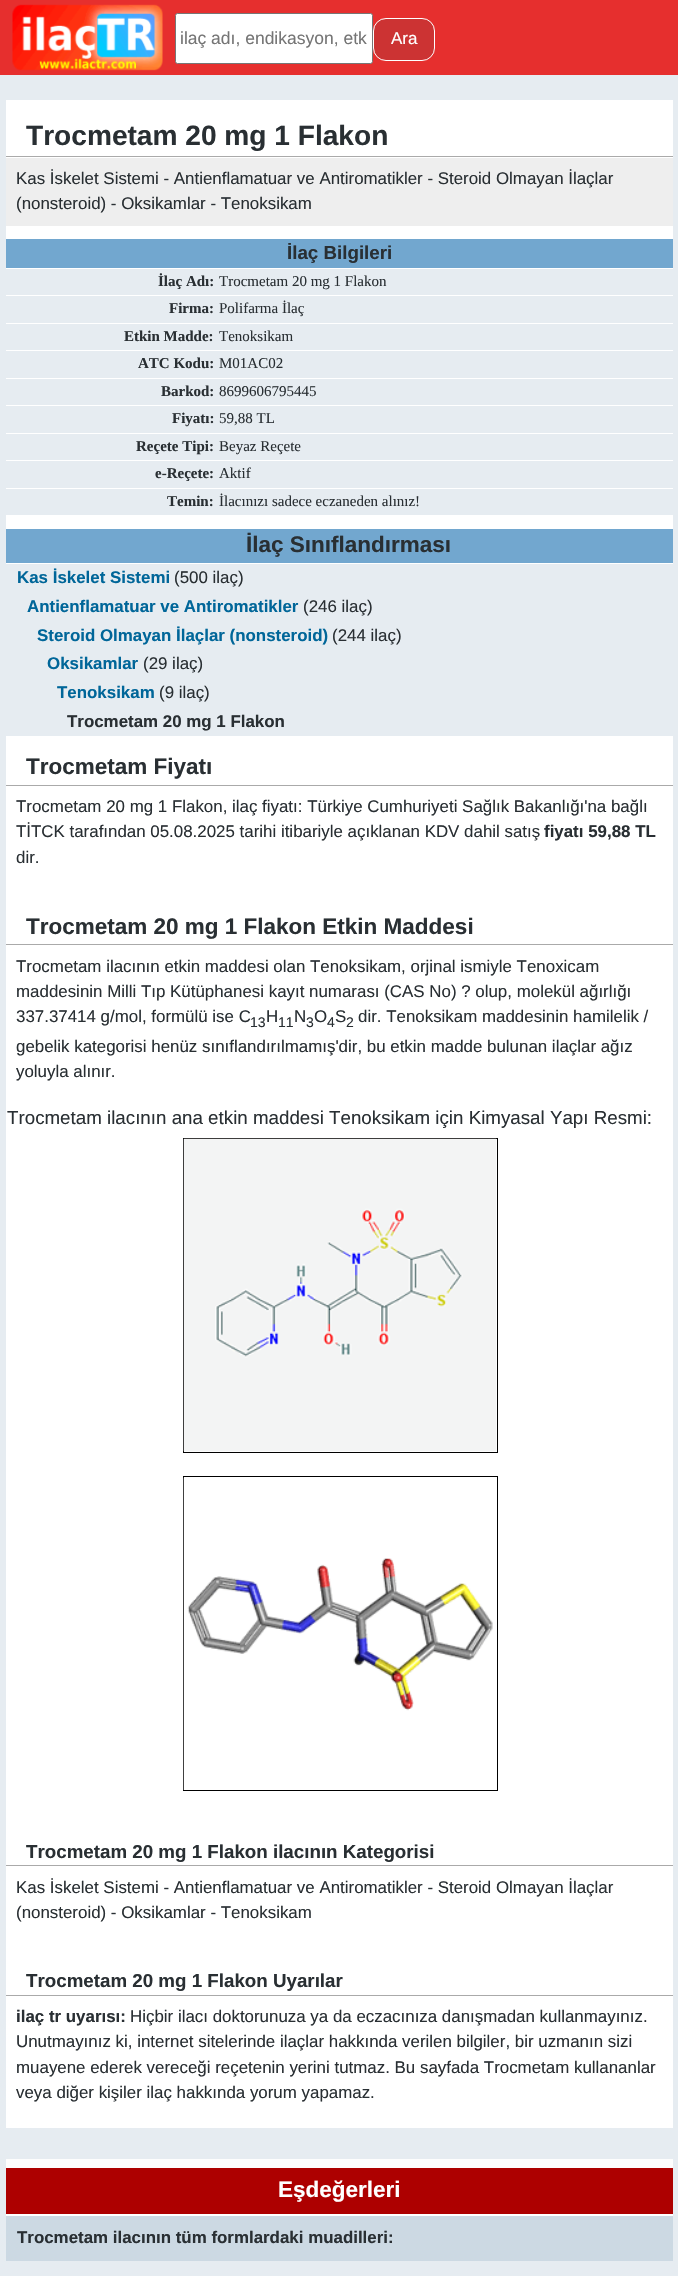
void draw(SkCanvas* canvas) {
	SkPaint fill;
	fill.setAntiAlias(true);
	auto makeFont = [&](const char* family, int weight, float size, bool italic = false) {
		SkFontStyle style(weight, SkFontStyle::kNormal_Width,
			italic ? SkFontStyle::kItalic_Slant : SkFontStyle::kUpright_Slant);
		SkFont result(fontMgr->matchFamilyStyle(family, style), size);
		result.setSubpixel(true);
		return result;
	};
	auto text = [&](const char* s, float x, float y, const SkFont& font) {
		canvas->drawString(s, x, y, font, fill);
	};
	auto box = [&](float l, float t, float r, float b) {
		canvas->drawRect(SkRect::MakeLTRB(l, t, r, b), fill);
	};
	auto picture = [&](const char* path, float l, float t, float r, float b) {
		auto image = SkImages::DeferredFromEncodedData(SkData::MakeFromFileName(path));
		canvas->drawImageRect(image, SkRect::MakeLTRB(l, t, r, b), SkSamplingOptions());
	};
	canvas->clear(0xFFE6ECF1);
	fill.setColor(0xFFE62F2E);
	box(0, 0, 678, 75);
	picture("image0.png", 12, 4, 163, 71);
	fill.setColor(0xFFFFFFFF);
	canvas->drawRoundRect(SkRect::MakeLTRB(175.5f, 13.5f, 372.5f, 63.5f), 2, 2, fill);
	fill.setStyle(SkPaint::kStroke_Style);
	fill.setStrokeWidth(1);
	fill.setColor(0xFF767676);
	canvas->drawRoundRect(SkRect::MakeLTRB(175.5f, 13.5f, 372.5f, 63.5f), 2, 2, fill);
	fill.setStyle(SkPaint::kFill_Style);
	fill.setColor(0xFFCC3333);
	canvas->drawRoundRect(SkRect::MakeLTRB(373.5f, 18.5f, 434.5f, 60.5f), 12.5f, 12.5f, fill);
	fill.setStyle(SkPaint::kStroke_Style);
	fill.setColor(0xFFFFFFFF);
	canvas->drawRoundRect(SkRect::MakeLTRB(373.5f, 18.5f, 434.5f, 60.5f), 12.5f, 12.5f, fill);
	fill.setStyle(SkPaint::kFill_Style);
	box(6, 100, 673, 2128);
	fill.setColor(0xFFAAAAAA);
	box(6, 156, 673, 157);
	fill.setColor(0xFFEEEEEE);
	box(6, 158, 673, 226);
	fill.setColor(0xFF72A7CF);
	box(6, 239, 673, 268);
	fill.setColor(0xFFE6ECF1);
	box(6, 269, 673, 295);
	box(6, 296, 673, 323);
	box(6, 324, 673, 350);
	box(6, 351, 673, 378);
	box(6, 379, 673, 405);
	box(6, 406, 673, 433);
	box(6, 434, 673, 460);
	box(6, 461, 673, 488);
	box(6, 489, 673, 515);
	box(6, 564, 673, 736);
	fill.setColor(0xFF72A7CF);
	box(6, 529, 673, 563);
	fill.setColor(0xFFAAAAAA);
	box(6, 785, 673, 786);
	box(6, 944, 673, 945);
	fill.setStyle(SkPaint::kStroke_Style);
	fill.setColor(0xFF000000);
	canvas->drawRect(SkRect::MakeLTRB(183.5f, 1138.5f, 497.5f, 1452.5f), fill);
	picture("image1.png", 183, 1138, 497, 1452);
	canvas->drawRect(SkRect::MakeLTRB(183.5f, 1476.5f, 497.5f, 1790.5f), fill);
	picture("image2.png", 183, 1477, 493, 1790);
	fill.setStyle(SkPaint::kFill_Style);
	fill.setColor(0xFFAAAAAA);
	box(6, 1865, 673, 1866);
	box(6, 1995, 673, 1996);
	fill.setColor(0xFFFDFDFD);
	box(6, 2159, 673, 2168);
	fill.setColor(0xFFAD0000);
	box(6, 2168, 673, 2214);
	fill.setColor(0xFFFFFFFF);
	box(6, 2214, 673, 2216);
	fill.setColor(0xFFCCD9E3);
	box(6, 2216, 673, 2261);
	auto font1 = makeFont("Liberation Sans", 400, 17.5f);
	fill.setColor(0xFF757575);
	text("ilaç adı, endikasyon, etk", 180, 44, font1);
	auto font2 = makeFont("Liberation Sans", 400, 17);
	fill.setColor(0xFFFFFFFF);
	text("Ara", 391, 44, font2);
	auto font3 = makeFont("Liberation Sans", 700, 28.1f);
	fill.setColor(0xFF292F33);
	text("Trocmetam 20 mg 1 Flakon", 26, 145, font3);
	auto font4 = makeFont("Liberation Sans", 400, 16.9f);
	text("Kas İskelet Sistemi - Antienflamatuar ve Antiromatikler - Steroid Olmayan İlaçlar", 16, 184, font4);
	text("(nonsteroid) - Oksikamlar - Tenoksikam", 16, 209, font4);
	auto font5 = makeFont("Liberation Sans", 700, 18.75f);
	text("İlaç Bilgileri", 287, 259, font5);
	auto font6 = makeFont("Liberation Serif", 700, 15);
	text("İlaç Adı:", 158, 286, font6);
	auto font7 = makeFont("Liberation Serif", 400, 15);
	text("Trocmetam 20 mg 1 Flakon", 219, 286, font7);
	text("Firma:", 169, 313, font6);
	text("Polifarma İlaç", 219, 313, font7);
	text("Etkin Madde:", 124, 341, font6);
	text("Tenoksikam", 219, 341, font7);
	text("ATC Kodu:", 138, 368, font6);
	text("M01AC02", 219, 368, font7);
	text("Barkod:", 161, 396, font6);
	text("8699606795445", 219, 396, font7);
	text("Fiyatı:", 172, 423, font6);
	text("59,88 TL", 219, 423, font7);
	text("Reçete Tipi:", 136, 451, font6);
	text("Beyaz Reçete", 219, 451, font7);
	text("e-Reçete:", 155, 478, font6);
	text("Aktif", 219, 478, font7);
	text("Temin:", 167, 506, font6);
	text("İlacınızı sadece eczaneden alınız!", 219, 506, font7);
	auto font8 = makeFont("Liberation Sans", 700, 22.5f);
	text("İlaç Sınıflandırması", 246, 552, font8);
	auto font9 = makeFont("Liberation Sans", 700, 16.9f);
	fill.setColor(0xFF006699);
	text("Kas İskelet Sistemi", 17, 583, font9);
	fill.setColor(0xFF292F33);
	text("(500 ilaç)", 174, 583, font4);
	fill.setColor(0xFF006699);
	text("Antienflamatuar ve Antiromatikler", 27, 612, font9);
	fill.setColor(0xFF292F33);
	text("(246 ilaç)", 303, 612, font4);
	fill.setColor(0xFF006699);
	text("Steroid Olmayan İlaçlar (nonsteroid)", 37, 641, font9);
	fill.setColor(0xFF292F33);
	text("(244 ilaç)", 332, 641, font4);
	fill.setColor(0xFF006699);
	text("Oksikamlar", 47, 669, font9);
	fill.setColor(0xFF292F33);
	text("(29 ilaç)", 143, 669, font4);
	fill.setColor(0xFF006699);
	text("Tenoksikam", 57, 698, font9);
	fill.setColor(0xFF292F33);
	text("(9 ilaç)", 159, 698, font4);
	text("Trocmetam 20 mg 1 Flakon", 67, 727, font9);
	text("Trocmetam Fiyatı", 26, 774, font8);
	text("Trocmetam 20 mg 1 Flakon, ilaç fiyatı: Türkiye Cumhuriyeti Sağlık Bakanlığı'na bağlı", 16, 812, font4);
	text("TİTCK tarafından 05.08.2025 tarihi itibariyle açıklanan KDV dahil satış", 16, 837, font4);
	text("fiyatı 59,88 TL", 544, 837, font9);
	text("dir.", 16, 863, font4);
	text("Trocmetam 20 mg 1 Flakon Etkin Maddesi", 26, 934, font8);
	text("Trocmetam ilacının etkin maddesi olan Tenoksikam, orjinal ismiyle Tenoxicam", 16, 972, font4);
	text("maddesinin Milli Tıp Kütüphanesi kayıt numarası (CAS No) ? olup, molekül ağırlığı", 16, 997, font4);
	text("337.37414 g/mol, formülü ise C", 16, 1022, font4);
	auto font10 = makeFont("Liberation Sans", 400, 14);
	text("13", 250, 1027, font10);
	text("H", 266, 1022, font4);
	text("11", 278, 1027, font10);
	text("N", 294, 1022, font4);
	text("3", 306, 1027, font10);
	text("O", 314, 1022, font4);
	text("4", 327, 1027, font10);
	text("S", 335, 1022, font4);
	text("2", 346, 1027, font10);
	text("dir. Tenoksikam maddesinin hamilelik /", 358, 1022, font4);
	text("gebelik kategorisi henüz sınıflandırılmamış'dir, bu etkin madde bulunan ilaçlar ağız", 16, 1052, font4);
	text("yoluyla alınır.", 16, 1077, font4);
	auto font11 = makeFont("Liberation Sans", 400, 18.75f);
	text("Trocmetam ilacının ana etkin maddesi Tenoksikam için Kimyasal Yapı Resmi:", 7, 1124, font11);
	text("Trocmetam 20 mg 1 Flakon ilacının Kategorisi", 26, 1858, font5);
	text("Kas İskelet Sistemi - Antienflamatuar ve Antiromatikler - Steroid Olmayan İlaçlar", 16, 1893, font4);
	text("(nonsteroid) - Oksikamlar - Tenoksikam", 16, 1918, font4);
	text("Trocmetam 20 mg 1 Flakon Uyarılar", 26, 1987, font5);
	text("ilaç tr uyarısı:", 16, 2022, font9);
	text("Hiçbir ilacı doktorunuza ya da eczacınıza danışmadan kullanmayınız.", 130, 2022, font4);
	text("Unutmayınız ki, internet sitelerinde ilaçlar hakkında verilen bilgiler, bir uzmanın sizi", 16, 2047, font4);
	text("muayene ederek vereceği reçetenin yerini tutmaz. Bu sayfada Trocmetam kullananlar", 16, 2073, font4);
	text("veya diğer kişiler ilaç hakkında yorum yapamaz.", 16, 2098, font4);
	fill.setColor(0xFFFFFFFF);
	text("Eşdeğerleri", 278, 2197, font8);
	fill.setColor(0xFF292F33);
	text("Trocmetam ilacının tüm formlardaki muadilleri:", 17, 2243, font9);
}
